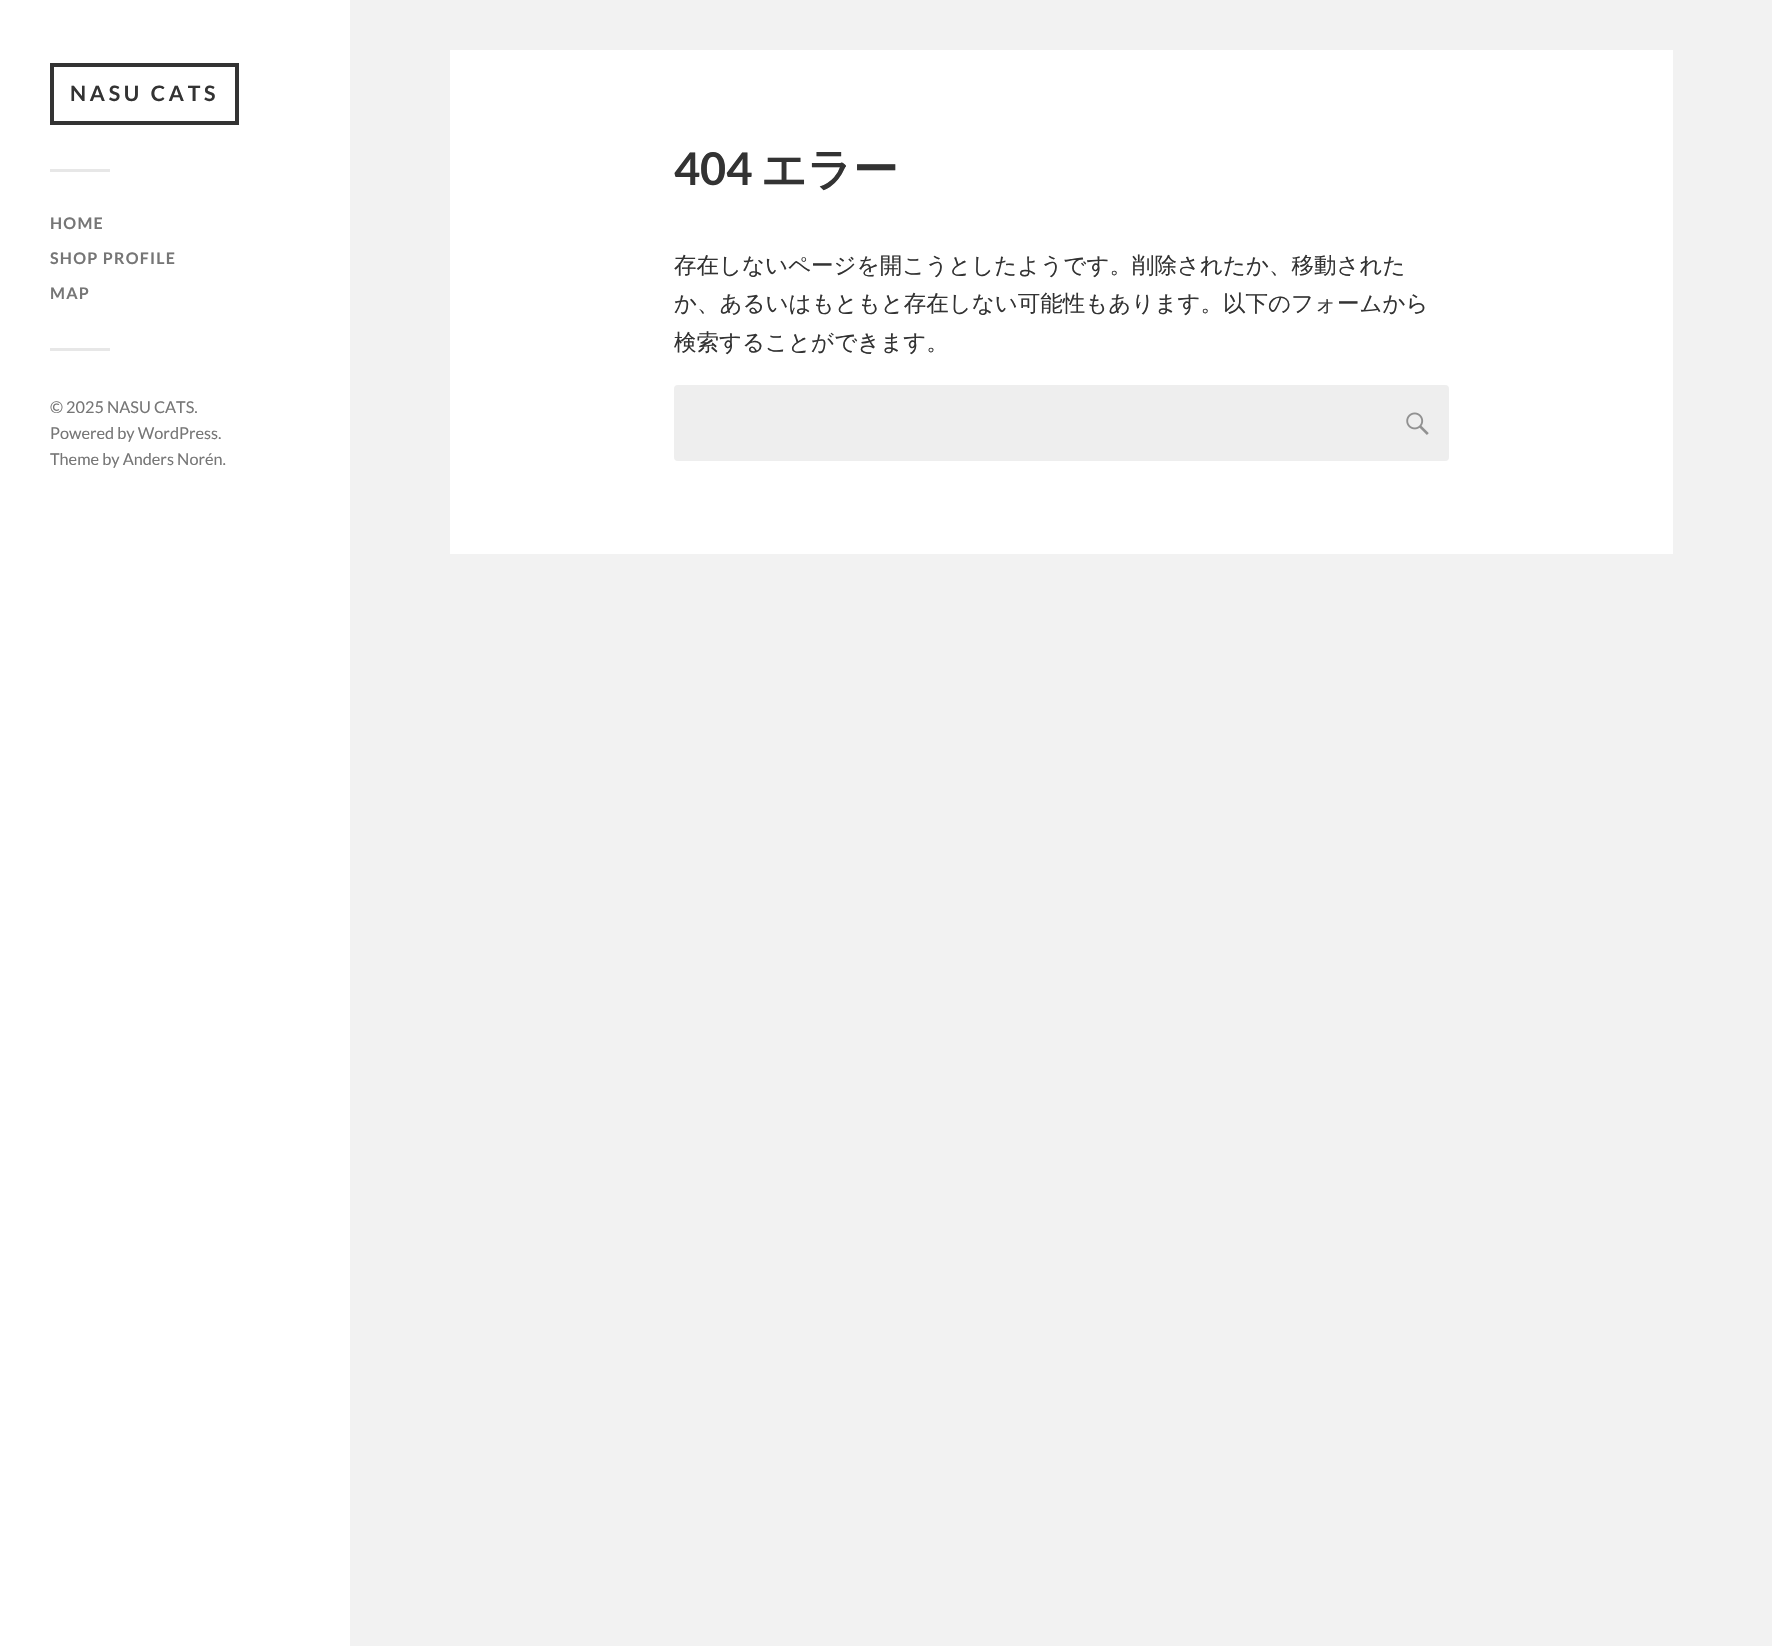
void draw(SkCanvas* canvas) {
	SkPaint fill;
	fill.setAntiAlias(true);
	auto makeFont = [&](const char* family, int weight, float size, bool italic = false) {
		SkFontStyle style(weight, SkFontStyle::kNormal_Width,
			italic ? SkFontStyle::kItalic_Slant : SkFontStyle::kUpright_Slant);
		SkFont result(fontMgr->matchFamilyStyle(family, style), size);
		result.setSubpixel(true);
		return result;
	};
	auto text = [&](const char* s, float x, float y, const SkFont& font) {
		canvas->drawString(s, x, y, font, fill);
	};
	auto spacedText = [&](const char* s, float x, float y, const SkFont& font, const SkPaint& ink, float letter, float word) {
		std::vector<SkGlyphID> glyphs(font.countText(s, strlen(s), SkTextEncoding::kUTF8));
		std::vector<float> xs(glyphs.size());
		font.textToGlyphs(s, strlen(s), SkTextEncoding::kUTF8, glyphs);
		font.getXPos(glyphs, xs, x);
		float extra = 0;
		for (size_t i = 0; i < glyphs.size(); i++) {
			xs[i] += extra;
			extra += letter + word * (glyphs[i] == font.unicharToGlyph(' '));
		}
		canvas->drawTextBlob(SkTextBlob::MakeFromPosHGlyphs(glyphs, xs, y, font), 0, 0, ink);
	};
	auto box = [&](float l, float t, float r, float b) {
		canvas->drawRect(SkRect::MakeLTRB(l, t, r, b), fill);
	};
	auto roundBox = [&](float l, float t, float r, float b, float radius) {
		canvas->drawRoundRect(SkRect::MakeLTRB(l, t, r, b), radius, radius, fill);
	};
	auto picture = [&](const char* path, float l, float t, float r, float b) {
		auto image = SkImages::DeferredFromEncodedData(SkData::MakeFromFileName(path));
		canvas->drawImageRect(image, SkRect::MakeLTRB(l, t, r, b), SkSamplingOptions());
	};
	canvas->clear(0xFFF2F2F2);
	fill.setColor(0xFFFFFFFF);
	box(0, 0, 350, 1646);
	fill.setStyle(SkPaint::kStroke_Style);
	fill.setStrokeWidth(4);
	fill.setColor(0xFF333333);
	canvas->drawRect(SkRect::MakeLTRB(52, 65, 237, 123), fill);
	fill.setStyle(SkPaint::kFill_Style);
	fill.setColor(0xFFE7E7E7);
	box(50, 169, 110, 172);
	box(50, 348, 110, 351);
	fill.setColor(0xFFFFFFFF);
	box(450, 50, 1673, 554);
	fill.setColor(0xFFEEEEEE);
	roundBox(674, 385, 1449, 461, 4);
	picture("image0.png", 1406, 412, 1429, 435);
	auto font1 = makeFont("Lato", 700, 21.25f);
	fill.setColor(0xFF333333);
	spacedText("NASU CATS", 70, 101, font1, fill, 3.75f, 0);
	auto font2 = makeFont("Lato", 700, 16);
	fill.setColor(0xFF767676);
	spacedText("HOME", 50, 229, font2, fill, 1.25f, 0);
	spacedText("SHOP PROFILE", 50, 264, font2, fill, 1.25f, 0);
	spacedText("MAP", 50, 299, font2, fill, 1.25f, 0);
	auto font3 = makeFont("Lato", 400, 16.25f);
	text("© 2025 NASU CATS.", 50, 413, font3);
	text("Powered by WordPress.", 50, 439, font3);
	text("Theme by Anders Norén.", 50, 465, font3);
	auto font4 = makeFont("Lato", 700, 45);
	fill.setColor(0xFF333333);
	text("404", 674, 185, font4);
	auto font5 = makeFont("WenQuanYi Zen Hei", 700, 45);
	text("エラー", 761, 185, font5);
	auto font6 = makeFont("WenQuanYi Zen Hei", 500, 22.5f);
	text("存在しないページを開こうとしたようです。削除されたか、移動された", 674, 273, font6);
	text("か、あるいはもともと存在しない可能性もあります。以下のフォームから", 674, 311, font6);
	text("検索することができます。", 674, 350, font6);
}
